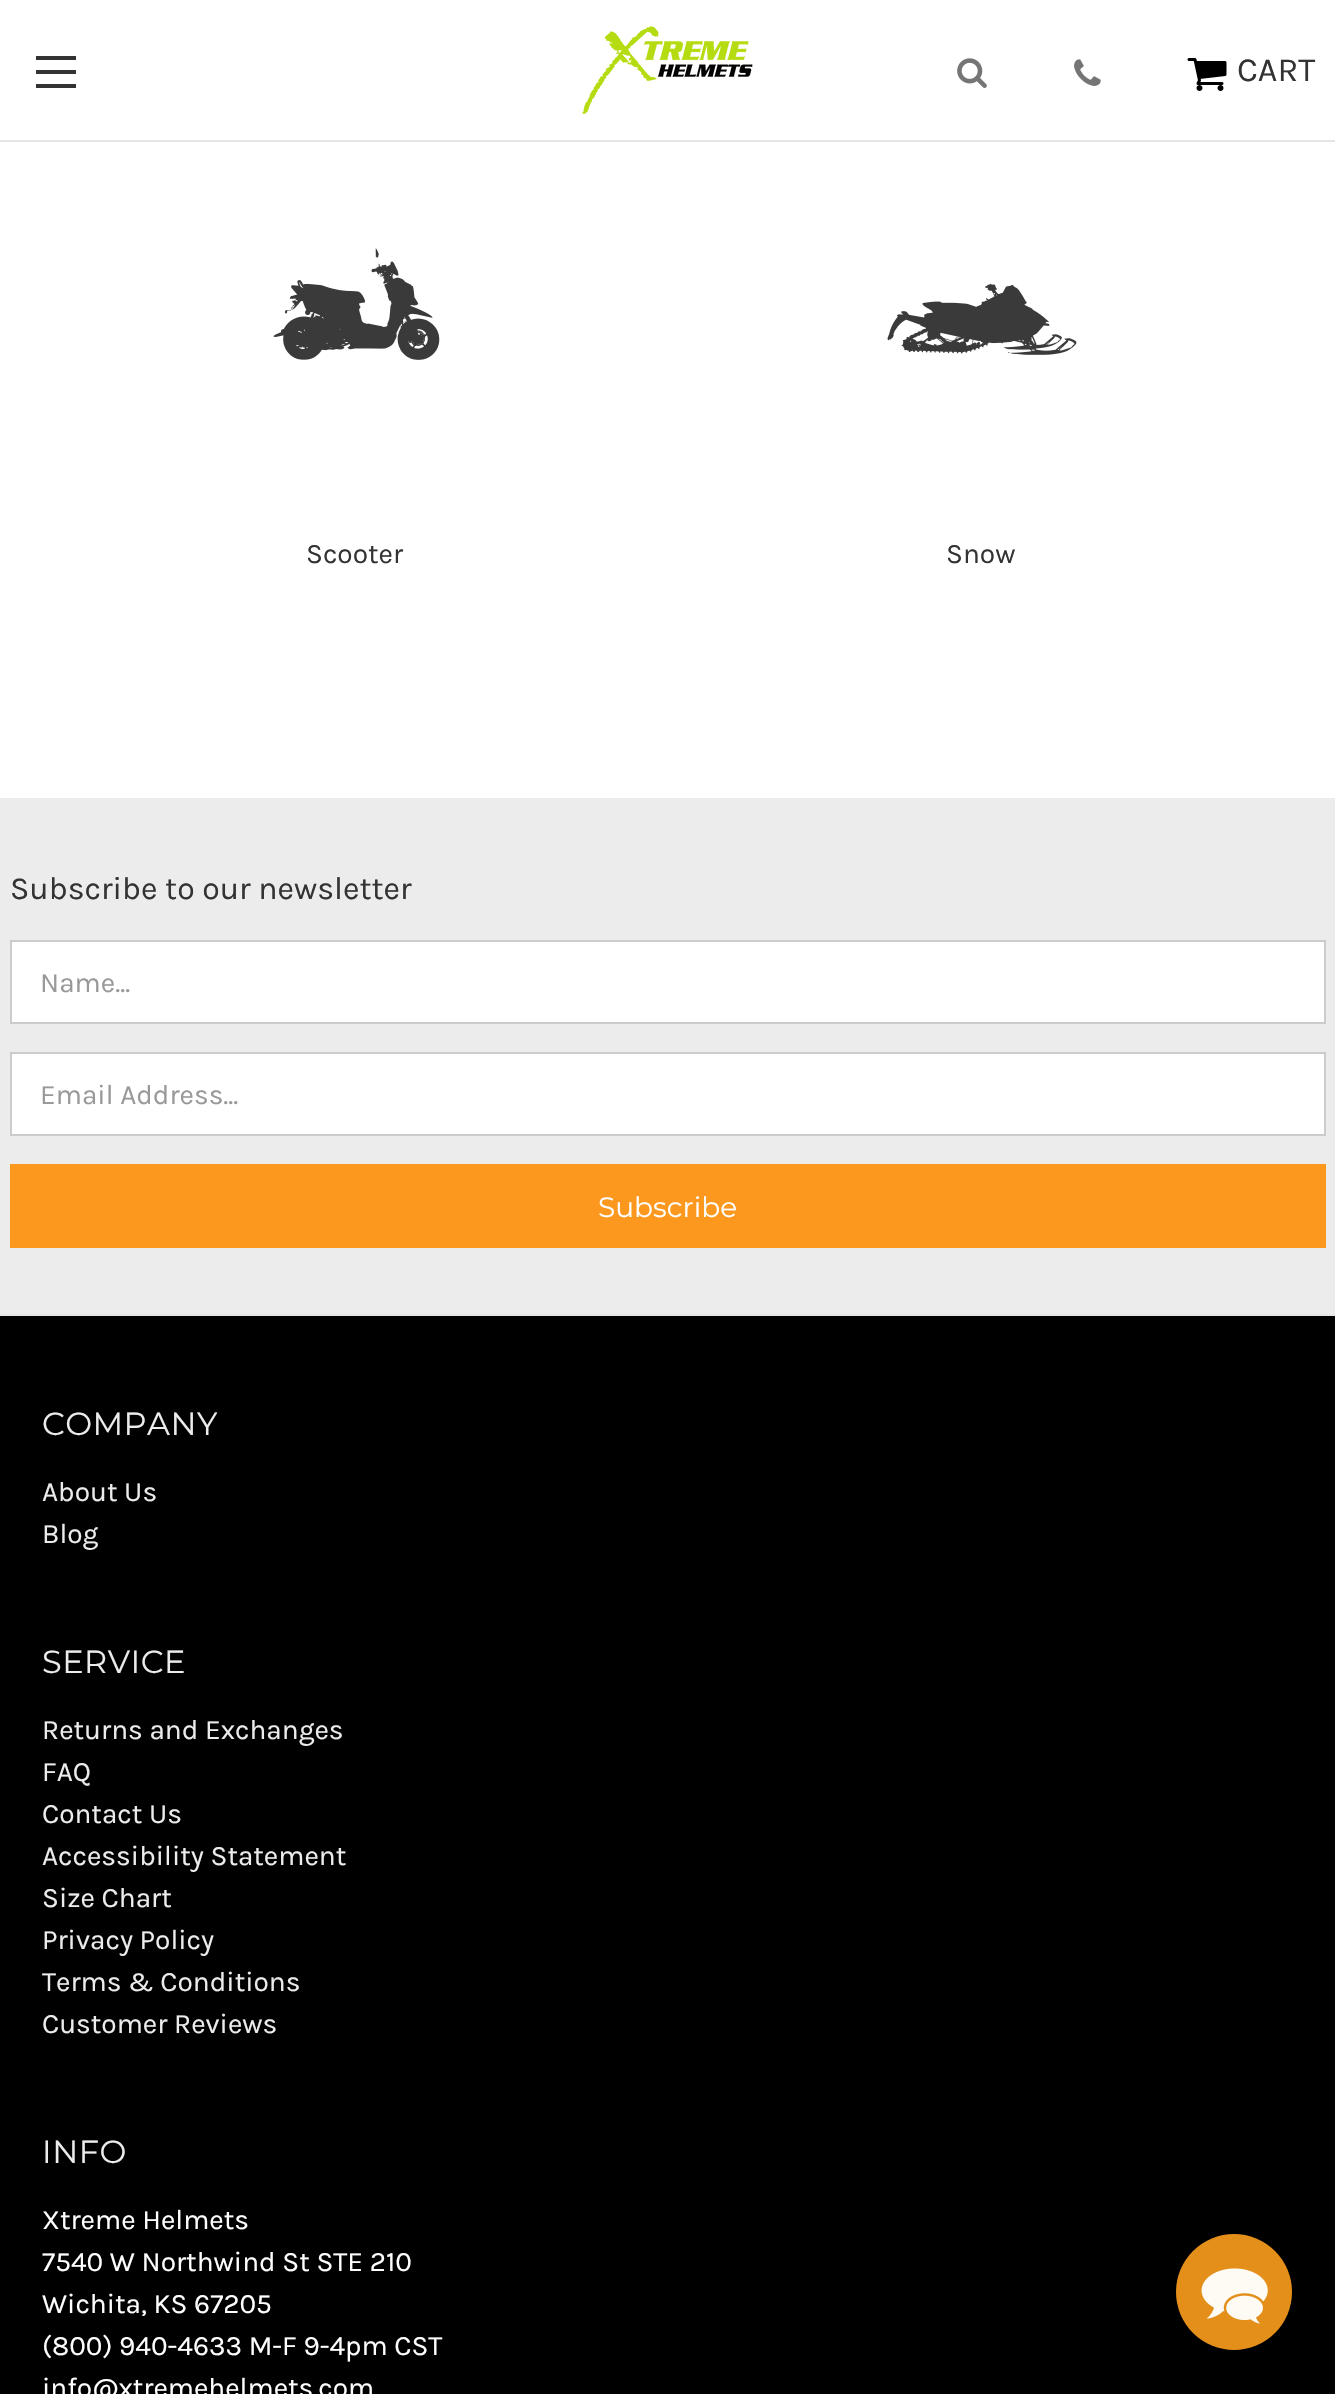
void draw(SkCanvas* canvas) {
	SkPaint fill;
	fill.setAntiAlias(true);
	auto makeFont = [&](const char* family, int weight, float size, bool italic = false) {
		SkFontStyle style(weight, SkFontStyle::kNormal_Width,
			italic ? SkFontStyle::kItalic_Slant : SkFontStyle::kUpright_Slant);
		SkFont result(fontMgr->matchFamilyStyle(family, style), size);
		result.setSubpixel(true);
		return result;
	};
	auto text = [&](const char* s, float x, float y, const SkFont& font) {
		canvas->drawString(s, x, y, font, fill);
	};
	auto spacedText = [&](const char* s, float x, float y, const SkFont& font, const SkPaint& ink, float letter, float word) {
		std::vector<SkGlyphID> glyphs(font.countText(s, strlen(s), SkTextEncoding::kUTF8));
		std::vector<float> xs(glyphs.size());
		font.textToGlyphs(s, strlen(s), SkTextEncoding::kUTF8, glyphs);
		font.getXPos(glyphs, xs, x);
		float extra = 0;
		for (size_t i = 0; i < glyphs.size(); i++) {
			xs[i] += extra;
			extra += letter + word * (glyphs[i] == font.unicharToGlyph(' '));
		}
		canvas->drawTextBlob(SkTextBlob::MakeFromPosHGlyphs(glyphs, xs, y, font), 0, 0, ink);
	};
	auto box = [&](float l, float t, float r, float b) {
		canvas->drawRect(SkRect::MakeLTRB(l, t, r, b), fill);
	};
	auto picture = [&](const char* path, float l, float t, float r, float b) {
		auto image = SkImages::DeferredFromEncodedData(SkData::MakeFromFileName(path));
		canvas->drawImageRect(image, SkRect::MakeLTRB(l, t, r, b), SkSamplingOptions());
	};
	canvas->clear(0xFFFFFFFF);
	fill.setColor(0xFFE5E5E5);
	box(0, 140, 1335, 142);
	fill.setColor(0xFF333333);
	box(36, 70, 76, 74);
	box(36, 56, 76, 60);
	box(36, 84, 76, 88);
	picture("image0.png", 582, 26, 753, 114);
	picture("image1.png", 957, 58, 987, 88);
	picture("image2.png", 1074, 59, 1101, 86);
	picture("image3.png", 1187, 58, 1227, 91);
	picture("image4.png", 273, 248, 440, 360);
	picture("image5.png", 887, 283, 1077, 355);
	fill.setColor(0xFFECECEC);
	box(0, 798, 1335, 1314);
	fill.setColor(0xFFFFFFFF);
	canvas->drawRect(SkRect::MakeLTRB(11, 941, 1325, 1023), fill);
	fill.setStyle(SkPaint::kStroke_Style);
	fill.setStrokeWidth(2);
	fill.setColor(0xFFCCCCCC);
	canvas->drawRect(SkRect::MakeLTRB(11, 941, 1325, 1023), fill);
	fill.setStyle(SkPaint::kFill_Style);
	fill.setColor(0xFFFFFFFF);
	canvas->drawRect(SkRect::MakeLTRB(11, 1053, 1325, 1135), fill);
	fill.setStyle(SkPaint::kStroke_Style);
	fill.setColor(0xFFCCCCCC);
	canvas->drawRect(SkRect::MakeLTRB(11, 1053, 1325, 1135), fill);
	fill.setStyle(SkPaint::kFill_Style);
	fill.setColor(0xFFFD981E);
	box(10, 1164, 1326, 1248);
	fill.setColor(0xFF000000);
	box(0, 1316, 1335, 2394);
	fill.setColor(0xFFE5E5E5);
	box(0, 1314, 1335, 1316);
	fill.setColor(0xFFE38F1A);
	canvas->drawCircle(1234, 2292, 58, fill);
	picture("image6.png", 1201, 2268, 1268, 2324);
	auto font1 = makeFont("Karla", 400, 34);
	fill.setColor(0xFF333333);
	text("CART", 1237, 81, font1);
	auto font2 = makeFont("Karla", 400, 28);
	text("Scooter", 306, 563, font2);
	text("Snow", 946, 563, font2);
	auto font3 = makeFont("Karla", 400, 32);
	text("Subscribe to our newsletter", 10, 899, font3);
	fill.setColor(0xFF999999);
	text("Name...", 40, 992, font2);
	text("Email Address...", 40, 1104, font2);
	auto font4 = makeFont("Montserrat", 100, 28);
	fill.setColor(0xFFFFFFFF);
	text("Subscribe", 598, 1217, font4);
	auto font5 = makeFont("Montserrat", 100, 32);
	fill.setColor(0xFFECECEC);
	spacedText("COMPANY", 42, 1435, font5, fill, 0.5f, 0);
	text("About Us", 42, 1501, font2);
	text("Blog", 42, 1543, font2);
	spacedText("SERVICE", 42, 1673, font5, fill, 0.5f, 0);
	text("Returns and Exchanges", 42, 1739, font2);
	text("FAQ", 42, 1781, font2);
	text("Contact Us", 42, 1823, font2);
	text("Accessibility Statement", 42, 1865, font2);
	text("Size Chart", 42, 1907, font2);
	text("Privacy Policy", 42, 1949, font2);
	text("Terms & Conditions", 42, 1991, font2);
	text("Customer Reviews", 42, 2033, font2);
	spacedText("INFO", 42, 2163, font5, fill, 0.5f, 0);
	fill.setColor(0xFFFFFFFF);
	text("Xtreme Helmets", 42, 2229, font2);
	text("7540 W Northwind St STE 210", 42, 2271, font2);
	text("Wichita, KS 67205", 42, 2313, font2);
	text("(800) 940-4633 M-F 9-4pm CST", 42, 2355, font2);
	text("info@xtremehelmets.com", 42, 2397, font2);
}
